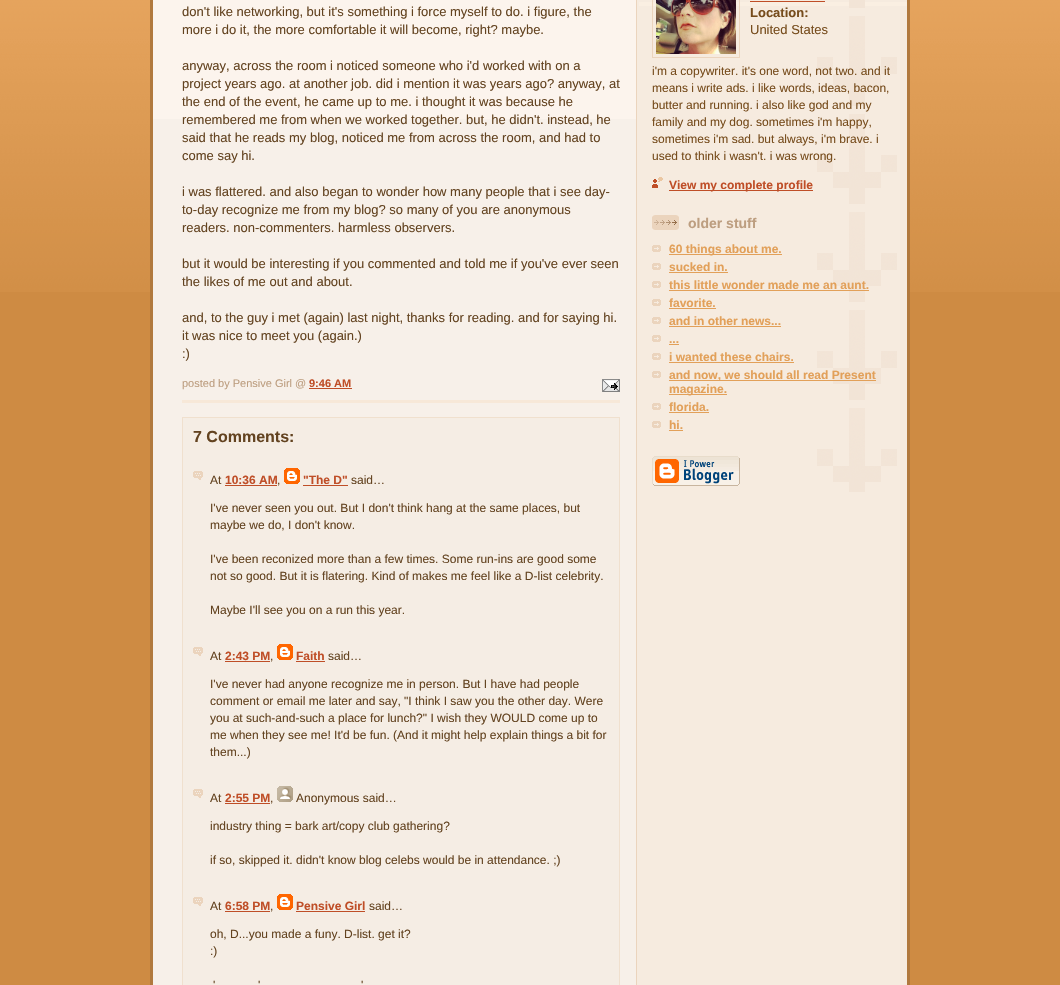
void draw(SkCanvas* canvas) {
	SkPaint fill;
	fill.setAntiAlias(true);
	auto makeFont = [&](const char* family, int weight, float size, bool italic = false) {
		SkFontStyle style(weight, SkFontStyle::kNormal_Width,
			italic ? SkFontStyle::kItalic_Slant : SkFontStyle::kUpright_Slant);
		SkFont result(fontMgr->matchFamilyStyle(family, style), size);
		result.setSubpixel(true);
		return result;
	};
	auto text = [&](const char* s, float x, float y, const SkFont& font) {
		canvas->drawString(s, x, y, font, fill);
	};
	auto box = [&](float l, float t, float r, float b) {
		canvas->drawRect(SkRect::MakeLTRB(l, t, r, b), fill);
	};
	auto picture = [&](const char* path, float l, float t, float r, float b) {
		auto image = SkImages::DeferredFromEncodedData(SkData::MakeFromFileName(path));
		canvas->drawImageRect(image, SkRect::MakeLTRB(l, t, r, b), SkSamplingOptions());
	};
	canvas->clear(0xFFCE8B43);
	picture("image0.png", 0, 0, 1060, 292);
	picture("image1.png", 150, 0, 910, 985);
	fill.setColor(0xFFFCF4ED);
	box(153, 0, 636, 119);
	fill.setColor(0xFFF7E8D8);
	box(182, 400, 620, 403);
	fill.setColor(0xFFBF4E27);
	box(309, 388, 352, 389);
	picture("image2.png", 602, 379, 620, 392);
	fill.setColor(0xFFF5EDE4);
	canvas->drawRect(SkRect::MakeLTRB(182.5f, 417.5f, 619.5f, 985.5f), fill);
	fill.setStyle(SkPaint::kStroke_Style);
	fill.setStrokeWidth(1);
	fill.setColor(0xFFF0E0CE);
	canvas->drawRect(SkRect::MakeLTRB(182.5f, 417.5f, 619.5f, 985.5f), fill);
	picture("image3.png", 193, 471, 203, 480);
	fill.setStyle(SkPaint::kFill_Style);
	fill.setColor(0xFFBF4E27);
	box(225, 485, 277, 486);
	picture("image4.png", 284, 468, 300, 484);
	box(303, 485, 348, 486);
	picture("image3.png", 193, 647, 203, 656);
	box(225, 661, 270, 662);
	picture("image4.png", 277, 644, 293, 660);
	box(296, 661, 325, 662);
	picture("image3.png", 193, 789, 203, 798);
	box(225, 803, 270, 804);
	picture("image5.png", 277, 786, 293, 802);
	picture("image3.png", 193, 897, 203, 906);
	box(225, 911, 270, 912);
	picture("image4.png", 277, 894, 293, 910);
	box(296, 911, 365, 912);
	fill.setColor(0xFFFAEFE2);
	box(639, 2, 907, 6);
	picture("image6.png", 817, 0, 897, 492);
	fill.setStyle(SkPaint::kStroke_Style);
	fill.setColor(0xFFEBD4BD);
	canvas->drawRect(SkRect::MakeLTRB(652.5f, -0.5f, 739.5f, 57.5f), fill);
	picture("image7.png", 656, 0, 736, 54);
	fill.setStyle(SkPaint::kFill_Style);
	fill.setColor(0xFFBF4E27);
	box(750, 1, 825, 2);
	picture("image8.png", 652, 177, 663, 188);
	box(669, 190, 813, 191);
	picture("image9.png", 652, 215, 679, 230);
	picture("image10.png", 652, 245, 661, 252);
	fill.setColor(0xFFE2A059);
	box(669, 254, 782, 255);
	picture("image10.png", 652, 263, 661, 270);
	box(669, 272, 728, 273);
	picture("image10.png", 652, 281, 661, 288);
	box(669, 290, 869, 291);
	picture("image10.png", 652, 299, 661, 306);
	box(669, 308, 716, 309);
	picture("image10.png", 652, 317, 661, 324);
	box(669, 326, 781, 327);
	picture("image10.png", 652, 335, 661, 342);
	box(669, 344, 679, 345);
	picture("image10.png", 652, 353, 661, 360);
	box(669, 362, 794, 363);
	picture("image10.png", 652, 371, 661, 378);
	box(669, 380, 876, 381);
	box(669, 394, 727, 395);
	picture("image10.png", 652, 403, 661, 410);
	box(669, 412, 709, 413);
	picture("image10.png", 652, 421, 661, 428);
	box(669, 430, 683, 431);
	picture("image11.png", 652, 456, 740, 486);
	auto font1 = makeFont("Liberation Sans", 400, 13);
	fill.setColor(0xFF634320);
	text("don't like networking, but it's something i force myself to do. i figure, the", 182, 16, font1);
	text("more i do it, the more comfortable it will become, right? maybe.", 182, 34, font1);
	text("anyway, across the room i noticed someone who i'd worked with on a", 182, 70, font1);
	text("project years ago. at another job. did i mention it was years ago? anyway, at", 182, 88, font1);
	text("the end of the event, he came up to me. i thought it was because he", 182, 106, font1);
	text("remembered me from when we worked together. but, he didn't. instead, he", 182, 124, font1);
	text("said that he reads my blog, noticed me from across the room, and had to", 182, 142, font1);
	text("come say hi.", 182, 160, font1);
	text("i was flattered. and also began to wonder how many people that i see day-", 182, 196, font1);
	text("to-day recognize me from my blog? so many of you are anonymous", 182, 214, font1);
	text("readers. non-commenters. harmless observers.", 182, 232, font1);
	text("but it would be interesting if you commented and told me if you've ever seen", 182, 268, font1);
	text("the likes of me out and about.", 182, 286, font1);
	text("and, to the guy i met (again) last night, thanks for reading. and for saying hi.", 182, 322, font1);
	text("it was nice to meet you (again.)", 182, 340, font1);
	text(":)", 182, 358, font1);
	auto font2 = makeFont("Liberation Sans", 400, 11);
	fill.setColor(0xFFBD9E80);
	text("posted by Pensive Girl @", 182, 387, font2);
	auto font3 = makeFont("Liberation Sans", 700, 11);
	fill.setColor(0xFFBF4E27);
	text("9:46 AM", 309, 387, font3);
	auto font4 = makeFont("Liberation Sans", 700, 16);
	fill.setColor(0xFF634320);
	text("7 Comments:", 193, 442, font4);
	auto font5 = makeFont("Liberation Sans", 400, 12);
	text("At", 210, 484, font5);
	auto font6 = makeFont("Liberation Sans", 700, 12);
	fill.setColor(0xFFBF4E27);
	text("10:36 AM", 225, 484, font6);
	fill.setColor(0xFF634320);
	text(",", 277, 484, font5);
	fill.setColor(0xFFBF4E27);
	text("\"The D\"", 303, 484, font6);
	fill.setColor(0xFF634320);
	text("said…", 351, 484, font5);
	text("I've never seen you out. But I don't think hang at the same places, but", 210, 512, font5);
	text("maybe we do, I don't know.", 210, 529, font5);
	text("I've been reconized more than a few times. Some run-ins are good some", 210, 563, font5);
	text("not so good. But it is flatering. Kind of makes me feel like a D-list celebrity.", 210, 580, font5);
	text("Maybe I'll see you on a run this year.", 210, 614, font5);
	text("At", 210, 660, font5);
	fill.setColor(0xFFBF4E27);
	text("2:43 PM", 225, 660, font6);
	fill.setColor(0xFF634320);
	text(",", 270, 660, font5);
	fill.setColor(0xFFBF4E27);
	text("Faith", 296, 660, font6);
	fill.setColor(0xFF634320);
	text("said…", 328, 660, font5);
	text("I've never had anyone recognize me in person. But I have had people", 210, 688, font5);
	text("comment or email me later and say, \"I think I saw you the other day. Were", 210, 705, font5);
	text("you at such-and-such a place for lunch?\" I wish they WOULD come up to", 210, 722, font5);
	text("me when they see me! It'd be fun. (And it might help explain things a bit for", 210, 739, font5);
	text("them...)", 210, 756, font5);
	text("At", 210, 802, font5);
	fill.setColor(0xFFBF4E27);
	text("2:55 PM", 225, 802, font6);
	fill.setColor(0xFF634320);
	text(",", 270, 802, font5);
	text("Anonymous said…", 296, 802, font5);
	text("industry thing = bark art/copy club gathering?", 210, 830, font5);
	text("if so, skipped it. didn't know blog celebs would be in attendance. ;)", 210, 864, font5);
	text("At", 210, 910, font5);
	fill.setColor(0xFFBF4E27);
	text("6:58 PM", 225, 910, font6);
	fill.setColor(0xFF634320);
	text(",", 270, 910, font5);
	fill.setColor(0xFFBF4E27);
	text("Pensive Girl", 296, 910, font6);
	fill.setColor(0xFF634320);
	text("said…", 369, 910, font5);
	text("oh, D...you made a funy. D-list. get it?", 210, 938, font5);
	text(":)", 210, 955, font5);
	text("'", 213, 989, font5);
	text("'", 258, 989, font5);
	text("'", 361, 989, font5);
	auto font7 = makeFont("Liberation Sans", 700, 13);
	fill.setColor(0xFF764C1C);
	text("Location:", 750, 17, font7);
	text("United States", 750, 34, font1);
	text("i'm a copywriter. it's one word, not two. and it", 652, 75, font5);
	text("means i write ads. i like words, ideas, bacon,", 652, 92, font5);
	text("butter and running. i also like god and my", 652, 109, font5);
	text("family and my dog. sometimes i'm happy,", 652, 126, font5);
	text("sometimes i'm sad. but always, i'm brave. i", 652, 143, font5);
	text("used to think i wasn't. i was wrong.", 652, 160, font5);
	fill.setColor(0xFFBF4E27);
	text("View my complete profile", 669, 189, font6);
	auto font8 = makeFont("Liberation Sans", 700, 14);
	fill.setColor(0xFFBD9E80);
	text("older stuff", 688, 228, font8);
	fill.setColor(0xFFE2A059);
	text("60 things about me.", 669, 253, font6);
	text("sucked in.", 669, 271, font6);
	text("this little wonder made me an aunt.", 669, 289, font6);
	text("favorite.", 669, 307, font6);
	text("and in other news...", 669, 325, font6);
	text("...", 669, 343, font6);
	text("i wanted these chairs.", 669, 361, font6);
	text("and now, we should all read Present", 669, 379, font6);
	text("magazine.", 669, 393, font6);
	text("florida.", 669, 411, font6);
	text("hi.", 669, 429, font6);
}
